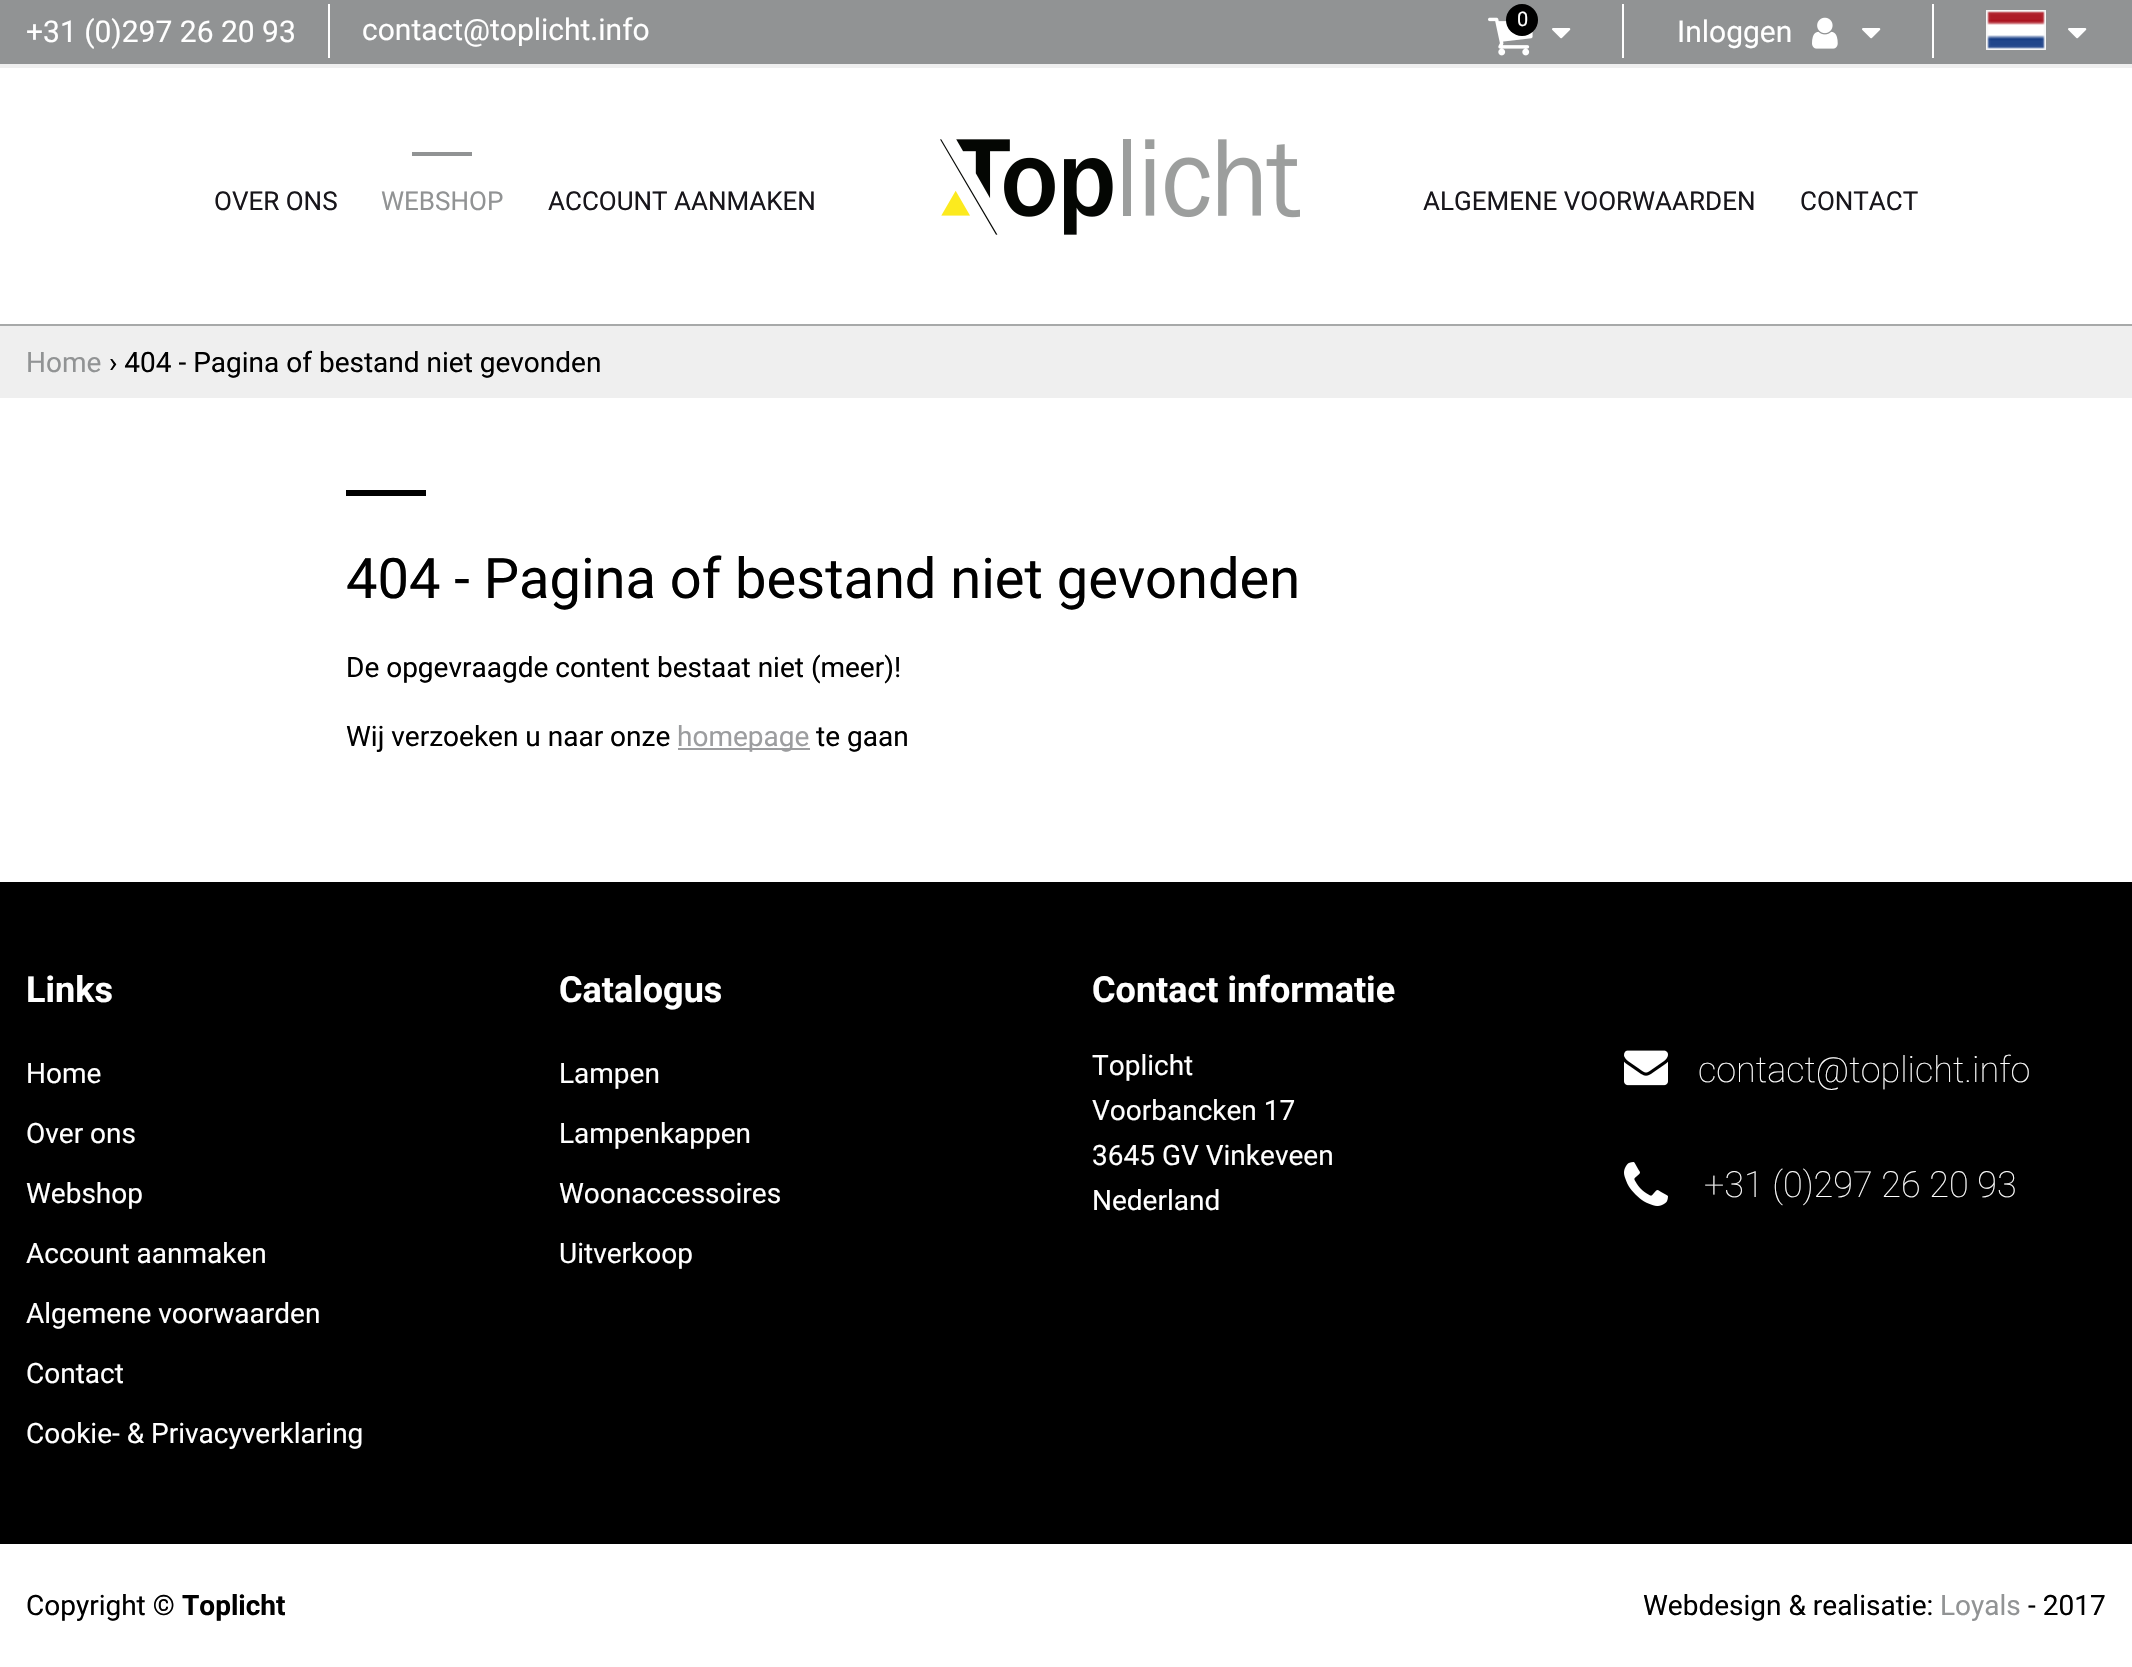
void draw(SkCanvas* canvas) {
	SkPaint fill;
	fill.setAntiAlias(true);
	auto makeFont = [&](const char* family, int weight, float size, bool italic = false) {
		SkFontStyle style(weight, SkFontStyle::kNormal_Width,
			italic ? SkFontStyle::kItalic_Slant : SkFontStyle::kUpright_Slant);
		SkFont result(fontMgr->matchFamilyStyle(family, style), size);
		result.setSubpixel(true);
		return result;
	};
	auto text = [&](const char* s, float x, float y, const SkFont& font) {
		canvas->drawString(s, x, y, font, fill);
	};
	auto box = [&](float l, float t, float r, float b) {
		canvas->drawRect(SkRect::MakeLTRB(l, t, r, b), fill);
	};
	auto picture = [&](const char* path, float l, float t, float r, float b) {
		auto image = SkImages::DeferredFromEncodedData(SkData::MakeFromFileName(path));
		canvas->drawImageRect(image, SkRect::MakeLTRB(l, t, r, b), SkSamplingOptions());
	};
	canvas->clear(0xFFFFFFFF);
	fill.setColor(0xFF919394);
	box(0, 0, 2132, 64);
	fill.setColor(0xFFEFEFEF);
	box(0, 64, 2132, 68);
	fill.setColor(0xFFFFFFFF);
	box(328, 4, 330, 58);
	picture("image0.png", 1488, 17, 1533, 56);
	fill.setColor(0xFF000000);
	canvas->drawCircle(1522, 20, 16, fill);
	picture("image1.png", 1552, 28, 1571, 39);
	fill.setColor(0xFFFFFFFF);
	box(1622, 4, 1624, 58);
	picture("image2.png", 1812, 17, 1838, 49);
	picture("image1.png", 1862, 28, 1881, 39);
	box(1932, 4, 1934, 58);
	picture("image3.png", 1986, 10, 2046, 50);
	picture("image1.png", 2068, 28, 2087, 39);
	fill.setColor(0xFF919394);
	box(412, 152, 472, 156);
	picture("image4.png", 940, 139, 1300, 235);
	fill.setColor(0xFFEFEFEF);
	box(0, 326, 2132, 398);
	fill.setColor(0xFFA7A9A9);
	box(0, 324, 2132, 326);
	fill.setColor(0xFF000000);
	box(346, 490, 426, 496);
	fill.setColor(0xFF9C9D9F);
	box(678, 748, 810, 750);
	fill.setColor(0xFF000000);
	box(0, 882, 2132, 1544);
	picture("image5.png", 1624, 1050, 1668, 1086);
	picture("image6.png", 1624, 1162, 1668, 1206);
	auto font1 = makeFont("Roboto", 400, 30);
	fill.setColor(0xFFFFFFFF);
	text("+31 (0)297 26 20 93", 26, 42, font1);
	text("contact@toplicht.info", 362, 40, font1);
	auto font2 = makeFont("Roboto", 400, 20);
	text("0", 1517, 26, font2);
	text("Inloggen", 1677, 42, font1);
	auto font3 = makeFont("Roboto", 400, 26);
	fill.setColor(0xFF18161B);
	text("OVER ONS", 214, 210, font3);
	fill.setColor(0xFF919394);
	text("WEBSHOP", 381, 210, font3);
	fill.setColor(0xFF18161B);
	text("ACCOUNT AANMAKEN", 548, 210, font3);
	text("ALGEMENE VOORWAARDEN", 1423, 210, font3);
	text("CONTACT", 1800, 210, font3);
	auto font4 = makeFont("Roboto", 400, 28);
	fill.setColor(0xFF919394);
	text("Home", 26, 372, font4);
	fill.setColor(0xFF000000);
	text("› 404 - Pagina of bestand niet gevonden", 109, 372, font4);
	auto font5 = makeFont("Roboto", 400, 56);
	text("404 - Pagina of bestand niet gevonden", 346, 598, font5);
	text("De opgevraagde content bestaat niet (meer)!", 346, 677, font4);
	text("Wij verzoeken u naar onze", 346, 746, font4);
	fill.setColor(0xFF9C9D9F);
	text("homepage", 677, 746, font4);
	fill.setColor(0xFF000000);
	text("te gaan", 816, 746, font4);
	auto font6 = makeFont("Roboto", 700, 36);
	fill.setColor(0xFFFFFFFF);
	text("Links", 26, 1002, font6);
	text("Home", 26, 1083, font4);
	text("Over ons", 26, 1143, font4);
	text("Webshop", 26, 1203, font4);
	text("Account aanmaken", 26, 1263, font4);
	text("Algemene voorwaarden", 26, 1323, font4);
	text("Contact", 26, 1383, font4);
	text("Cookie- & Privacyverklaring", 26, 1443, font4);
	text("Catalogus", 559, 1002, font6);
	text("Lampen", 559, 1083, font4);
	text("Lampenkappen", 559, 1143, font4);
	text("Woonaccessoires", 559, 1203, font4);
	text("Uitverkoop", 559, 1263, font4);
	text("Contact informatie", 1092, 1002, font6);
	text("Toplicht", 1092, 1075, font4);
	text("Voorbancken 17", 1092, 1120, font4);
	text("3645 GV Vinkeveen", 1092, 1165, font4);
	text("Nederland", 1092, 1210, font4);
	auto font7 = makeFont("Roboto", 100, 36);
	text("contact@toplicht.info", 1698, 1082, font7);
	text("+31 (0)297 26 20 93", 1704, 1197, font7);
	fill.setColor(0xFF000000);
	text("Copyright ©", 26, 1615, font4);
	auto font8 = makeFont("Roboto", 700, 28);
	text("Toplicht", 182, 1615, font8);
	text("Webdesign & realisatie:", 1643, 1615, font4);
	fill.setColor(0xFF919394);
	text("Loyals", 1940, 1615, font4);
	fill.setColor(0xFF000000);
	text("- 2017", 2028, 1615, font4);
}
